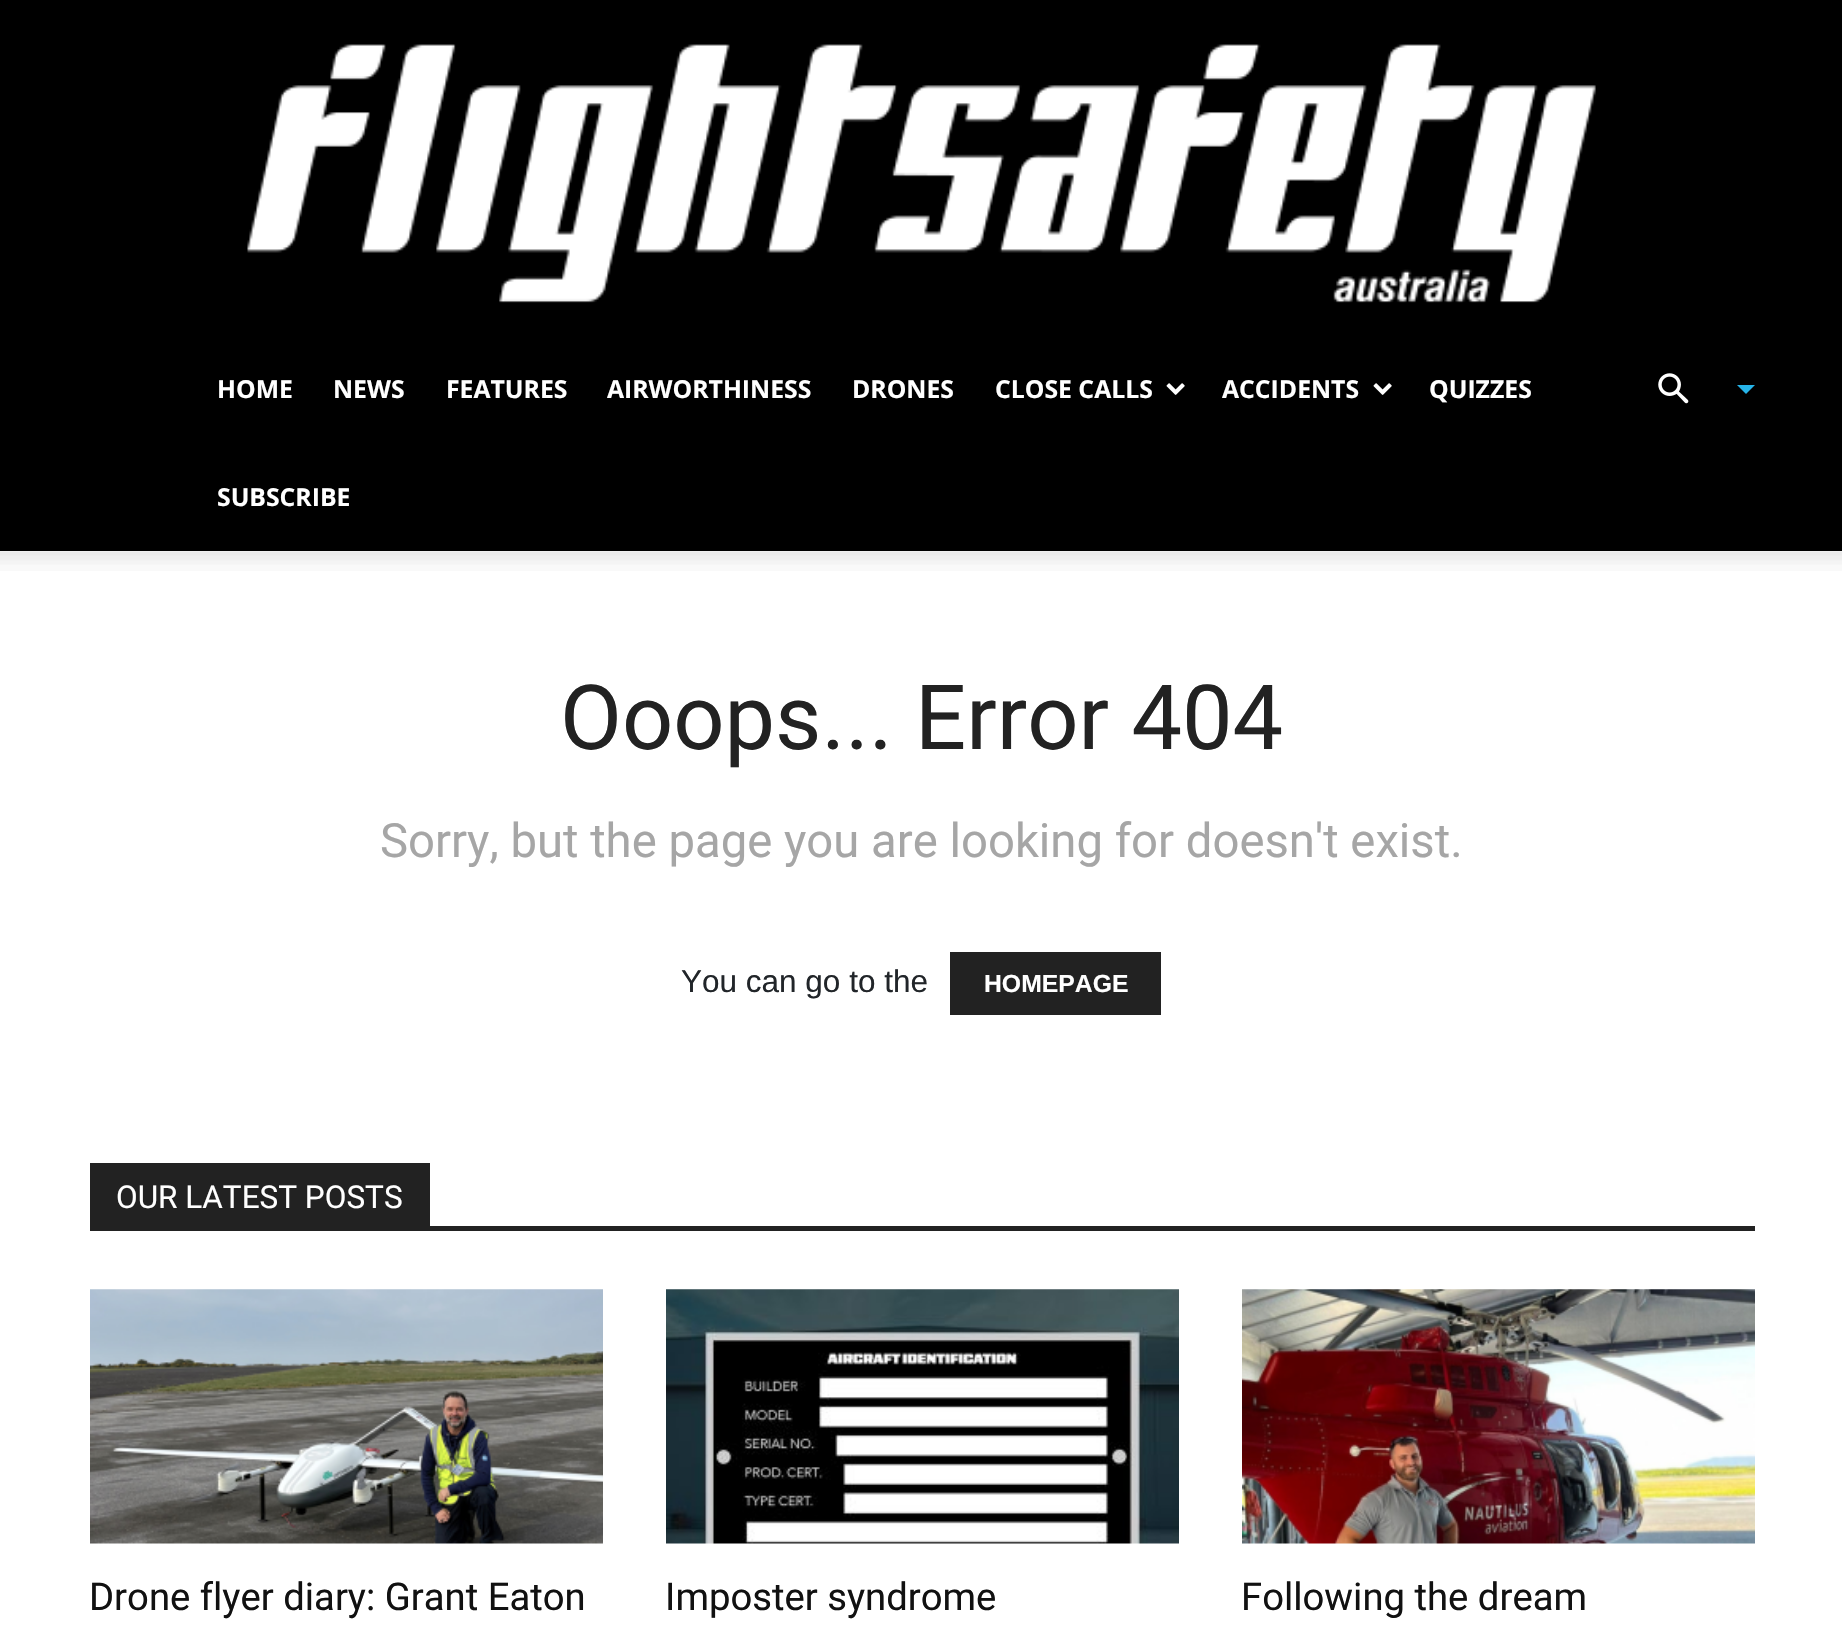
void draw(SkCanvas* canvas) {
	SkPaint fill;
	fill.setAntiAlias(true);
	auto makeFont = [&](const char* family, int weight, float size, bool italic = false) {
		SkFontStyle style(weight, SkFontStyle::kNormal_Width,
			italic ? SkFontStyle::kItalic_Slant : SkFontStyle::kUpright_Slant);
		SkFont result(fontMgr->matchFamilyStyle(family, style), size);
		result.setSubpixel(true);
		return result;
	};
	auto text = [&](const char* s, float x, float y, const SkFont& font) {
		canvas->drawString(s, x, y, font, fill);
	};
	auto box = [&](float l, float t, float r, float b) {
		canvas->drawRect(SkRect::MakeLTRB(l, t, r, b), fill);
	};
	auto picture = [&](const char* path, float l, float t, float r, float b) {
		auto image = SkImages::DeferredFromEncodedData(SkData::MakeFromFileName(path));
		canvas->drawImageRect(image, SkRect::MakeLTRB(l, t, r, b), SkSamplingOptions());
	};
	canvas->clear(0xFF000000);
	picture("image0.png", 247, 44, 1596, 303);
	picture("image1.png", 1166, 383, 1185, 395);
	picture("image1.png", 1373, 383, 1392, 395);
	picture("image2.png", 1658, 373, 1689, 404);
	fill.setColor(0xFF26B4E9);
	canvas->drawPath(SkPathBuilder().moveTo(1737, 385).lineTo(1755, 385).lineTo(1746, 394).close().detach(), fill);
	fill.setColor(0xFFFFFFFF);
	box(0, 551, 1842, 1626);
	picture("image3.png", 0, 551, 1842, 571);
	fill.setColor(0xFF222222);
	box(950, 952, 1161, 1015);
	box(90, 1226, 1755, 1231);
	box(90, 1163, 430, 1226);
	picture("image4.png", 90, 1289, 603, 1544);
	picture("image5.png", 666, 1289, 1179, 1544);
	picture("image6.png", 1242, 1289, 1755, 1544);
	auto font1 = makeFont("Open Sans", 700, 24.75f);
	fill.setColor(0xFFFFFFFF);
	text("HOME", 217, 398, font1);
	text("NEWS", 333, 398, font1);
	text("FEATURES", 446, 398, font1);
	text("AIRWORTHINESS", 607, 398, font1);
	text("DRONES", 852, 398, font1);
	text("CLOSE CALLS", 995, 398, font1);
	text("ACCIDENTS", 1222, 398, font1);
	text("QUIZZES", 1429, 398, font1);
	text("SUBSCRIBE", 217, 506, font1);
	auto font2 = makeFont("Roboto", 400, 90);
	fill.setColor(0xFF222222);
	text("Ooops... Error 404", 560, 749, font2);
	auto font3 = makeFont("Roboto", 400, 47.25f);
	fill.setColor(0xFFA6A6A6);
	text("Sorry, but the page you are looking for doesn't exist.", 380, 857, font3);
	auto font4 = makeFont("Liberation Sans", 400, 31.5f);
	fill.setColor(0xFF212529);
	text("You can go to the", 681, 992, font4);
	auto font5 = makeFont("Liberation Sans", 700, 24.75f);
	fill.setColor(0xFFFFFFFF);
	text("HOMEPAGE", 984, 992, font5);
	auto font6 = makeFont("Roboto", 400, 31.5f);
	text("OUR LATEST POSTS", 116, 1208, font6);
	auto font7 = makeFont("Roboto", 400, 38.25f);
	fill.setColor(0xFF111111);
	text("Drone flyer diary: Grant Eaton", 89, 1610, font7);
	text("Imposter syndrome", 665, 1610, font7);
	text("Following the dream", 1241, 1610, font7);
}
